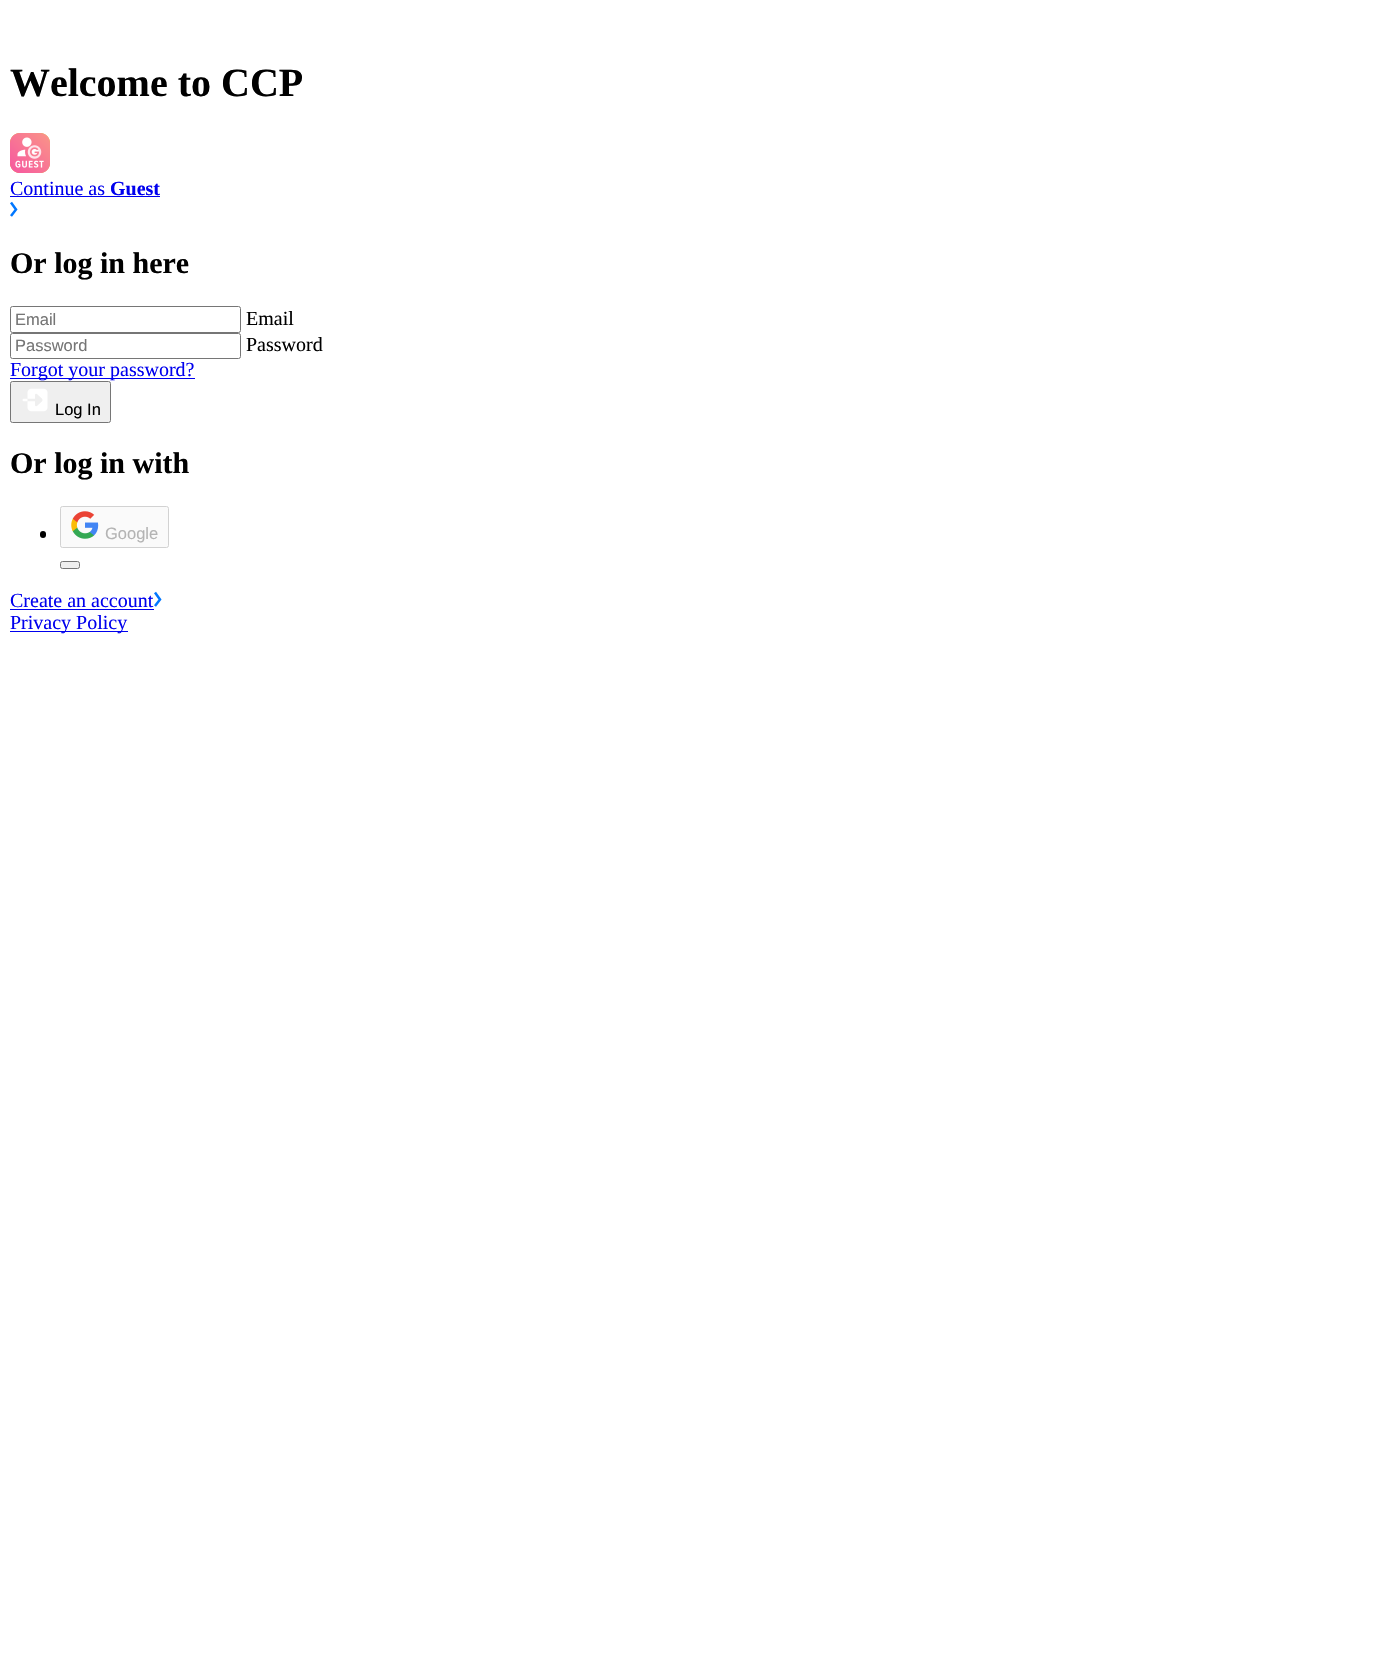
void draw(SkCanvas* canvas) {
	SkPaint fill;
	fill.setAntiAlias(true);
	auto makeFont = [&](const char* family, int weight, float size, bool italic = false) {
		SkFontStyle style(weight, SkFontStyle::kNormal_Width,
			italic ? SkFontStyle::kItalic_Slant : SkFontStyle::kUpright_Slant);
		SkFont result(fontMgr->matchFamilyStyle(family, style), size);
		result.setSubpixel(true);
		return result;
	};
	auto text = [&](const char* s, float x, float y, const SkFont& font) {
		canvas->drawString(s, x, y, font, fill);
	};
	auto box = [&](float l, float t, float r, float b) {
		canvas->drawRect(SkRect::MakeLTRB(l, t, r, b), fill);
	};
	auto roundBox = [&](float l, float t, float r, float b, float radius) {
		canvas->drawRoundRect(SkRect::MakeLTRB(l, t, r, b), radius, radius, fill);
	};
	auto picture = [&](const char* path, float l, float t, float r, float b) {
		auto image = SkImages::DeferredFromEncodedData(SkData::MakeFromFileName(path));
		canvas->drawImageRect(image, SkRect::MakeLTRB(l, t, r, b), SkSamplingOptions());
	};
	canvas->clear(0xFFFFFFFF);
	picture("image0.png", 10, 133, 50, 173);
	fill.setColor(0xFF0000EE);
	box(10, 196, 160, 197);
	fill.setStyle(SkPaint::kStroke_Style);
	fill.setStrokeWidth(2.5f);
	fill.setColor(0xFF0077FF);
	canvas->drawPath(SkPathBuilder().moveTo(11, 216).lineTo(16, 209.5f).lineTo(11, 202.5f).detach(), fill);
	fill.setStrokeWidth(1);
	fill.setColor(0xFF767676);
	canvas->drawRoundRect(SkRect::MakeLTRB(10.5f, 306.5f, 240.5f, 332.5f), 2, 2, fill);
	canvas->drawRoundRect(SkRect::MakeLTRB(10.5f, 333.5f, 240.5f, 358.5f), 2, 2, fill);
	fill.setStyle(SkPaint::kFill_Style);
	fill.setColor(0xFF0000EE);
	box(10, 378, 195, 379);
	fill.setColor(0xFFEFEFEF);
	canvas->drawRoundRect(SkRect::MakeLTRB(10.5f, 381.5f, 110.5f, 422.5f), 2, 2, fill);
	fill.setStyle(SkPaint::kStroke_Style);
	fill.setColor(0xFF767676);
	canvas->drawRoundRect(SkRect::MakeLTRB(10.5f, 381.5f, 110.5f, 422.5f), 2, 2, fill);
	picture("image1.png", 22, 388, 48, 412);
	fill.setStyle(SkPaint::kFill_Style);
	fill.setColor(0xFF000000);
	roundBox(40, 531, 46, 538, 3);
	fill.setColor(0xFFFAFAFA);
	canvas->drawRoundRect(SkRect::MakeLTRB(60.5f, 506.5f, 168.5f, 547.5f), 2, 2, fill);
	fill.setStyle(SkPaint::kStroke_Style);
	fill.setColor(0xFFD2D2D2);
	canvas->drawRoundRect(SkRect::MakeLTRB(60.5f, 506.5f, 168.5f, 547.5f), 2, 2, fill);
	picture("image2.png", 71, 511, 99, 539);
	fill.setStyle(SkPaint::kFill_Style);
	fill.setColor(0xFFEFEFEF);
	canvas->drawRoundRect(SkRect::MakeLTRB(60.5f, 561.5f, 79.5f, 568.5f), 2, 2, fill);
	fill.setStyle(SkPaint::kStroke_Style);
	fill.setColor(0xFF767676);
	canvas->drawRoundRect(SkRect::MakeLTRB(60.5f, 561.5f, 79.5f, 568.5f), 2, 2, fill);
	fill.setStyle(SkPaint::kFill_Style);
	fill.setColor(0xFF0000EE);
	box(10, 609, 154, 610);
	fill.setStyle(SkPaint::kStroke_Style);
	fill.setStrokeWidth(2.5f);
	fill.setColor(0xFF0077FF);
	canvas->drawPath(SkPathBuilder().moveTo(155, 606).lineTo(160, 599.5f).lineTo(155, 592.5f).detach(), fill);
	fill.setStyle(SkPaint::kFill_Style);
	fill.setColor(0xFF0000EE);
	box(10, 631, 128, 632);
	auto font1 = makeFont("Liberation Serif", 700, 40);
	fill.setColor(0xFF000000);
	text("Welcome to CCP", 10, 96, font1);
	auto font2 = makeFont("Liberation Serif", 400, 20);
	fill.setColor(0xFF0000EE);
	text("Continue as", 10, 195, font2);
	auto font3 = makeFont("Liberation Serif", 700, 20);
	text("Guest", 110, 195, font3);
	auto font4 = makeFont("Liberation Serif", 700, 30);
	fill.setColor(0xFF000000);
	text("Or log in here", 10, 273, font4);
	auto font5 = makeFont("Liberation Sans", 400, 16.5f);
	fill.setColor(0xFF757575);
	text("Email", 15, 325, font5);
	fill.setColor(0xFF000000);
	text("Email", 246, 325, font2);
	fill.setColor(0xFF757575);
	text("Password", 15, 351, font5);
	fill.setColor(0xFF000000);
	text("Password", 246, 351, font2);
	fill.setColor(0xFF0000EE);
	text("Forgot your password?", 10, 376, font2);
	fill.setColor(0xFF000000);
	text("Log In", 55, 415, font5);
	text("Or log in with", 10, 473, font4);
	fill.setColor(0xFFB4B4B4);
	text("Google", 105, 539, font5);
	fill.setColor(0xFF0000EE);
	text("Create an account", 10, 607, font2);
	text("Privacy Policy", 10, 629, font2);
}
